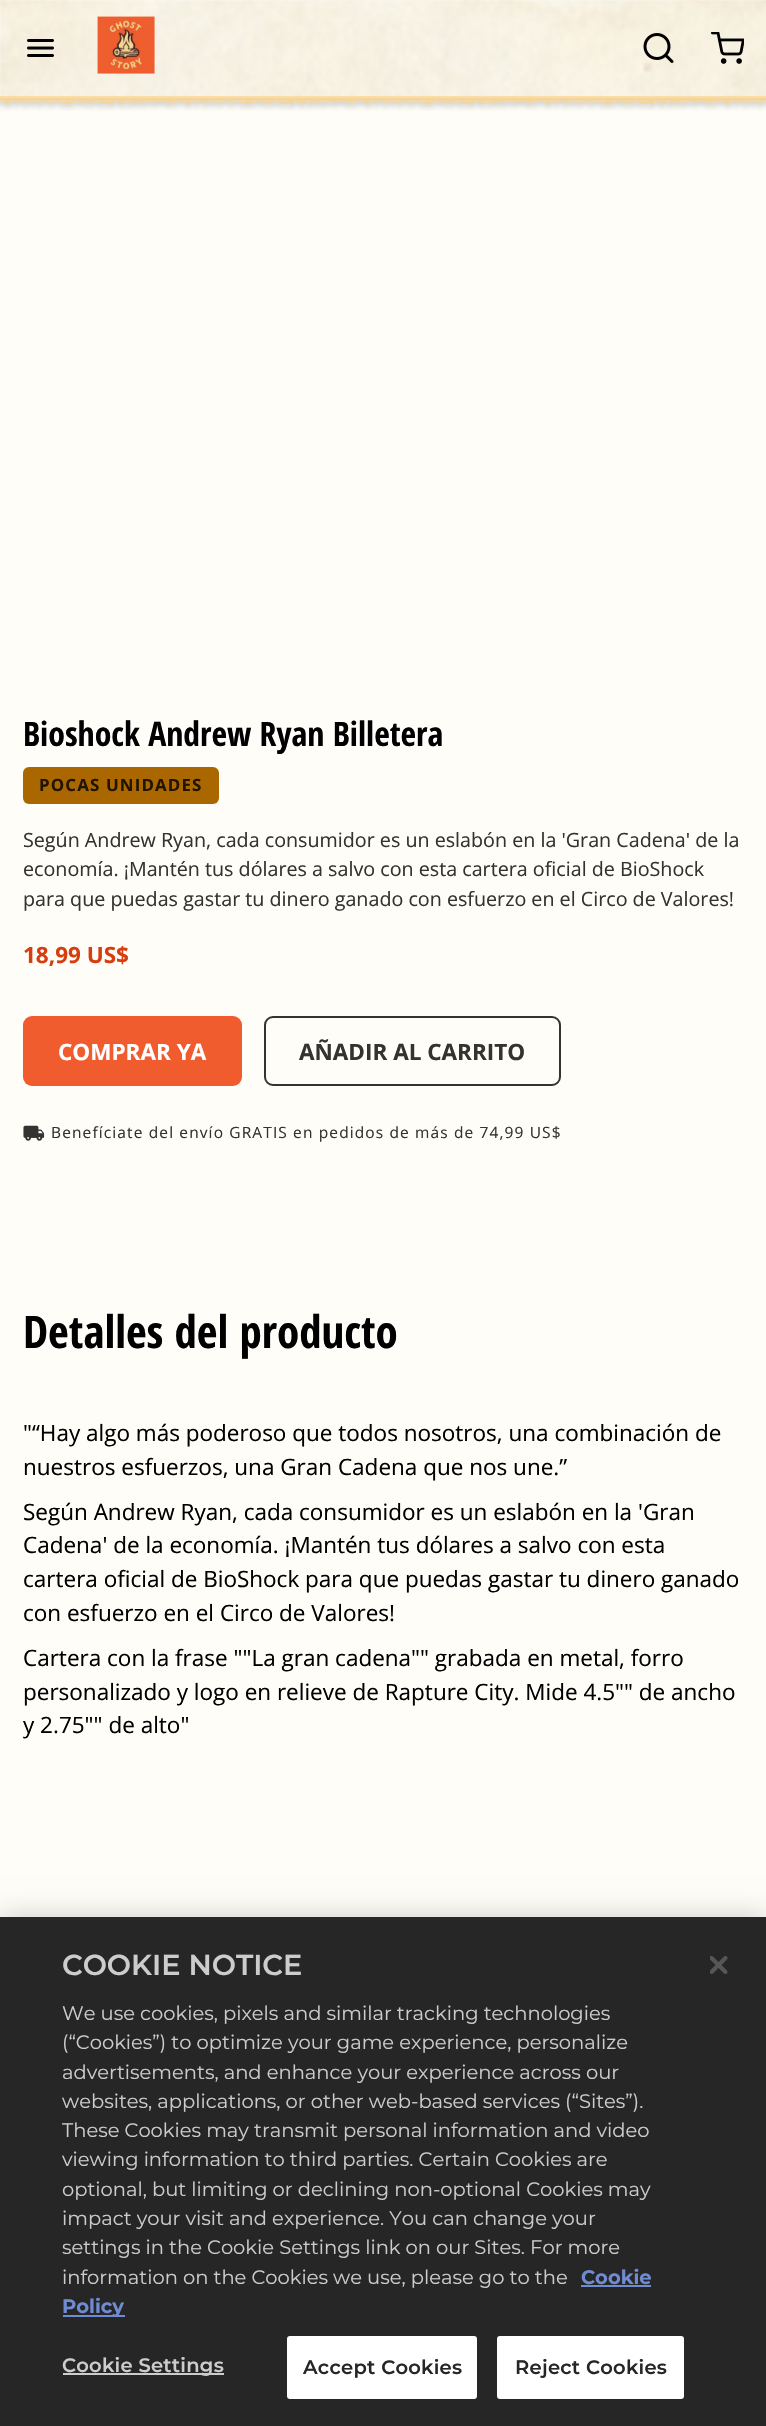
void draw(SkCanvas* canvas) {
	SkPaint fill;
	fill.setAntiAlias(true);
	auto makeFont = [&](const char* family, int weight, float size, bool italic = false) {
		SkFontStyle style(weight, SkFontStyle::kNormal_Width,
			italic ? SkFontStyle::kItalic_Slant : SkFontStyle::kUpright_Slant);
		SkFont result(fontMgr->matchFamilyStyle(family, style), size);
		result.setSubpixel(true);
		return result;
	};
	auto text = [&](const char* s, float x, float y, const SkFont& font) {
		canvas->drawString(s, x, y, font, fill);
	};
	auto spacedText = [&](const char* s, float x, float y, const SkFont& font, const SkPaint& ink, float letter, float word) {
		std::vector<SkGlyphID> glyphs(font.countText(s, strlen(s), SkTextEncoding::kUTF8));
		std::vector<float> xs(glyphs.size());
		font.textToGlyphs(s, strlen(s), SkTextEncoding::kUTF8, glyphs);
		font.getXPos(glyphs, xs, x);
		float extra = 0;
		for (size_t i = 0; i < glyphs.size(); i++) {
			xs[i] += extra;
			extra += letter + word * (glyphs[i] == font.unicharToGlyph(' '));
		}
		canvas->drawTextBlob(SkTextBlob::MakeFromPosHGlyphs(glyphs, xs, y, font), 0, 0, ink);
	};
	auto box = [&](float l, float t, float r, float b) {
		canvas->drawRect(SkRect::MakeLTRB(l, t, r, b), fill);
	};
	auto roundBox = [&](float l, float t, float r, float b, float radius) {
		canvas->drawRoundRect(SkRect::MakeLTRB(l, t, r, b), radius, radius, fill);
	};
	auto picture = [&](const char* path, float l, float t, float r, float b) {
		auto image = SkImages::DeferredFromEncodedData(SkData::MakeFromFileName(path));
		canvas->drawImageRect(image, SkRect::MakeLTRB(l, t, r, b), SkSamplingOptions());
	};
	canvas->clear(0xFFFEFDF8);
	fill.setColor(0x26000000);
	fill.setMaskFilter(SkMaskFilter::MakeBlur(kNormal_SkBlurStyle, 3));
	canvas->drawRect(SkRect::MakeLTRB(0, 5, 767, 101), fill);
	fill.setMaskFilter(nullptr);
	picture("image0.png", 0, 0, 766, 96);
	picture("image5.png", 0, 96, 766, 111);
	fill.setStyle(SkPaint::kStroke_Style);
	fill.setStrokeWidth(2);
	fill.setColor(0x33FFFFFF);
	canvas->drawRect(SkRect::MakeLTRB(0, 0, 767, 97), fill);
	picture("image1.png", 27, 39, 54, 57);
	picture("image2.png", 97, 16, 155, 74);
	picture("image3.png", 643, 33, 674, 63);
	picture("image4.png", 711, 32, 744, 64);
	fill.setStyle(SkPaint::kFill_Style);
	fill.setColor(0xFFAA6700);
	roundBox(23, 767, 219, 804, 6);
	fill.setColor(0xFFF05C2E);
	roundBox(23, 1016, 242, 1086, 9);
	fill.setStyle(SkPaint::kStroke_Style);
	fill.setColor(0xFF333332);
	canvas->drawRoundRect(SkRect::MakeLTRB(265, 1017, 560, 1085), 8, 8, fill);
	picture("image6.png", 23, 1125, 45, 1141);
	fill.setStyle(SkPaint::kFill_Style);
	fill.setColor(0x33000000);
	fill.setMaskFilter(SkMaskFilter::MakeBlur(kNormal_SkBlurStyle, 13.5f));
	canvas->drawRect(SkRect::MakeLTRB(0, 1917, 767, 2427), fill);
	fill.setMaskFilter(nullptr);
	fill.setColor(0xFF262626);
	box(0, 1917, 766, 2426);
	fill.setColor(0xFF6E8BD4);
	box(581, 2285, 651, 2287);
	box(63, 2315, 125, 2317);
	fill.setColor(0xFFCCCCCC);
	box(63, 2373, 224, 2375);
	fill.setColor(0xFFFFFFFF);
	canvas->drawRoundRect(SkRect::MakeLTRB(288, 2337, 476, 2398), 2, 2, fill);
	fill.setStyle(SkPaint::kStroke_Style);
	canvas->drawRoundRect(SkRect::MakeLTRB(288, 2337, 476, 2398), 2, 2, fill);
	fill.setStyle(SkPaint::kFill_Style);
	canvas->drawRoundRect(SkRect::MakeLTRB(498, 2337, 683, 2398), 2, 2, fill);
	fill.setStyle(SkPaint::kStroke_Style);
	canvas->drawRoundRect(SkRect::MakeLTRB(498, 2337, 683, 2398), 2, 2, fill);
	picture("image7.png", 710, 1956, 728, 1974);
	auto font1 = makeFont("Open Sans Condensed", 700, 33.75f);
	fill.setStyle(SkPaint::kFill_Style);
	fill.setColor(0xFF000000);
	text("Bioshock Andrew Ryan Billetera", 23, 746, font1);
	auto font2 = makeFont("Open Sans", 700, 16.9f);
	fill.setColor(0xFF221500);
	spacedText("POCAS UNIDADES", 39, 791, font2, fill, 1.12f, 0);
	auto font3 = makeFont("Open Sans", 400, 19.7f);
	fill.setColor(0xFF333332);
	text("Según Andrew Ryan, cada consumidor es un eslabón en la 'Gran Cadena' de la", 23, 847, font3);
	text("economía. ¡Mantén tus dólares a salvo con esta cartera oficial de BioShock", 23, 876, font3);
	text("para que puedas gastar tu dinero ganado con esfuerzo en el Circo de Valores!", 23, 906, font3);
	auto font4 = makeFont("Open Sans", 700, 22.5f);
	fill.setColor(0xFFD73E0F);
	text("18,99 US$", 23, 963, font4);
	fill.setColor(0xFFFFFFFF);
	text("COMPRAR YA", 58, 1060, font4);
	fill.setColor(0xFF333332);
	text("AÑADIR AL CARRITO", 299, 1060, font4);
	auto font5 = makeFont("Open Sans", 400, 15.5f);
	spacedText("Benefíciate del envío GRATIS en pedidos de más de 74,99 US$", 51, 1138, font5, fill, 1.12f, 0);
	auto font6 = makeFont("Open Sans Condensed", 700, 45);
	fill.setColor(0xFF000000);
	text("Detalles del producto", 23, 1348, font6);
	auto font7 = makeFont("Open Sans", 400, 22.5f);
	text("\"“Hay algo más poderoso que todos nosotros, una combinación de", 23, 1441, font7);
	text("nuestros esfuerzos, una Gran Cadena que nos une.”", 23, 1475, font7);
	text("Según Andrew Ryan, cada consumidor es un eslabón en la 'Gran", 23, 1520, font7);
	text("Cadena' de la economía. ¡Mantén tus dólares a salvo con esta", 23, 1553, font7);
	text("cartera oficial de BioShock para que puedas gastar tu dinero ganado", 23, 1587, font7);
	text("con esfuerzo en el Circo de Valores!", 23, 1621, font7);
	text("Cartera con la frase \"\"La gran cadena\"\" grabada en metal, forro", 23, 1666, font7);
	text("personalizado y logo en relieve de Rapture City. Mide 4.5\"\" de ancho", 23, 1700, font7);
	text("y 2.75\"\" de alto\"", 23, 1733, font7);
	auto font8 = makeFont("Montserrat", 600, 28.75f);
	fill.setColor(0xFFCCCCCC);
	text("COOKIE NOTICE", 62, 1975, font8);
	auto font9 = makeFont("Montserrat", 400, 19.5f);
	text("We use cookies, pixels and similar tracking technologies", 62, 2020, font9);
	text("(“Cookies”) to optimize your game experience, personalize", 62, 2049, font9);
	text("advertisements, and enhance your experience across our", 62, 2079, font9);
	text("websites, applications, or other web-based services (“Sites”).", 62, 2108, font9);
	text("These Cookies may transmit personal information and video", 62, 2137, font9);
	text("viewing information to third parties. Certain Cookies are", 62, 2166, font9);
	text("optional, but limiting or declining non-optional Cookies may", 62, 2196, font9);
	text("impact your visit and experience. You can change your", 62, 2225, font9);
	text("settings in the Cookie Settings link on our Sites. For more", 62, 2254, font9);
	text("information on the Cookies we use, please go to the", 62, 2284, font9);
	auto font10 = makeFont("Montserrat", 700, 19.5f);
	fill.setColor(0xFF6E8BD4);
	text("Cookie", 581, 2284, font10);
	text("Policy", 62, 2313, font10);
	auto font11 = makeFont("Montserrat", 600, 19.5f);
	fill.setColor(0xFFCCCCCC);
	spacedText("Cookie Settings", 62, 2372, font11, fill, 0.25f, 0);
	fill.setColor(0xFF262626);
	spacedText("Accept Cookies", 303, 2374, font11, fill, 0.25f, 0);
	spacedText("Reject Cookies", 515, 2374, font11, fill, 0.25f, 0);
}
